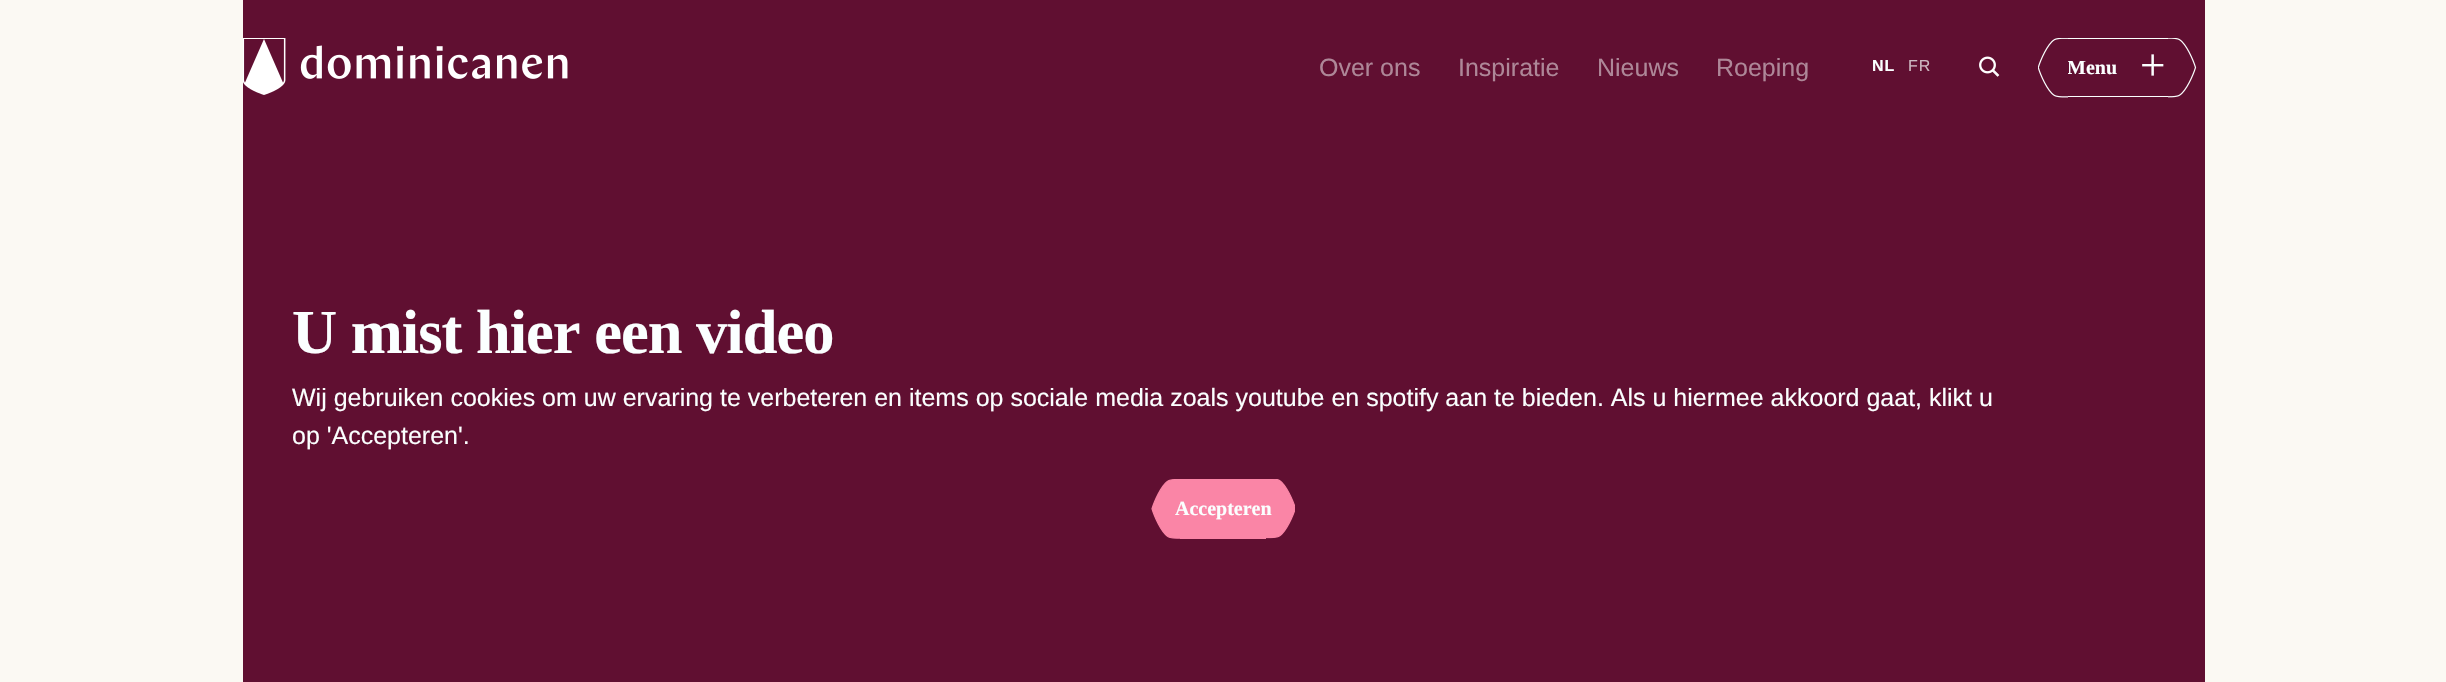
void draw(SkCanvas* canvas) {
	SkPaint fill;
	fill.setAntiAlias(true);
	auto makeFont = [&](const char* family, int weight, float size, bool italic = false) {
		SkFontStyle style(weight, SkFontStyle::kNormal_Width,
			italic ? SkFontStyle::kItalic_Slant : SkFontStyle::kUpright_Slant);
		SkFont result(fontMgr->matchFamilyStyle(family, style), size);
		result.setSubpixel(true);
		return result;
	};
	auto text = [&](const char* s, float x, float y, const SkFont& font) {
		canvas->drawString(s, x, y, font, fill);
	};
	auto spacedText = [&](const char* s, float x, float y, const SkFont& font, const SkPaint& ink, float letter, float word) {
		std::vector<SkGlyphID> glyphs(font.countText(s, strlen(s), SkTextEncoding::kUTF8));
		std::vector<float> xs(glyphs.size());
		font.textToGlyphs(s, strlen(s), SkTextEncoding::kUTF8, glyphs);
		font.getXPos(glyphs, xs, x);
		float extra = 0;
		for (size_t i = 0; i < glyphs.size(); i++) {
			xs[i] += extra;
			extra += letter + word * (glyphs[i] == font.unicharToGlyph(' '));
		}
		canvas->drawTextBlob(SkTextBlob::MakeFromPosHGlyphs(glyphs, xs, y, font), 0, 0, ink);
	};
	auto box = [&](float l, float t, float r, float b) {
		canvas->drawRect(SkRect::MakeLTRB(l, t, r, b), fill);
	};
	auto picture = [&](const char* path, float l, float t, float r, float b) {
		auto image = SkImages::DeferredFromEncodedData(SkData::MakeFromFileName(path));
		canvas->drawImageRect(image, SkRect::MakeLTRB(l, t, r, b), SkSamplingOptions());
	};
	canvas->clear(0xFFFBF9F3);
	fill.setColor(0xFF600F31);
	box(243, 0, 2205, 682);
	picture("image0.png", 243, 38, 568, 95);
	picture("image1.png", 1979, 56, 2000, 77);
	fill.setColor(0xFFFBFFFF);
	box(2068, 38, 2168, 39);
	box(2068, 96, 2168, 97);
	picture("image3.png", 2168, 38, 2197, 98);
	picture("image4.png", 1151, 479, 1180, 539);
	fill.setColor(0xFFFA85A6);
	box(1180, 479, 1266, 539);
	picture("image5.png", 1266, 479, 1295, 539);
	auto font1 = makeFont("Liberation Sans", 400, 25);
	fill.setColor(0xFFAE8798);
	text("Over ons", 1319, 76, font1);
	text("Inspiratie", 1458, 76, font1);
	text("Nieuws", 1597, 76, font1);
	text("Roeping", 1716, 76, font1);
	auto font2 = makeFont("Liberation Sans", 700, 16);
	fill.setColor(0xFFFBFFFF);
	spacedText("NL", 1872, 71, font2, fill, 1, 0);
	auto font3 = makeFont("Liberation Sans", 400, 16);
	fill.setColor(0xFFCDB7C1);
	spacedText("FR", 1908, 71, font3, fill, 1, 0);
	auto font4 = makeFont("Liberation Serif", 700, 20);
	fill.setColor(0xFFFBFFFF);
	text("Menu", 2067, 74, font4);
	picture("image2.png", 2038, 38, 2068, 98);
	auto font5 = makeFont("Liberation Serif", 400, 45);
	text("+", 2140, 80, font5);
	auto font6 = makeFont("Liberation Serif", 700, 62.5f);
	spacedText("U mist hier een video", 292, 353, font6, fill, -1, 0);
	text("Wij gebruiken cookies om uw ervaring te verbeteren en items op sociale media zoals youtube en spotify aan te bieden. Als u hiermee akkoord gaat, klikt u", 292, 406, font1);
	text("op 'Accepteren'.", 292, 444, font1);
	text("Accepteren", 1175, 515, font4);
}
